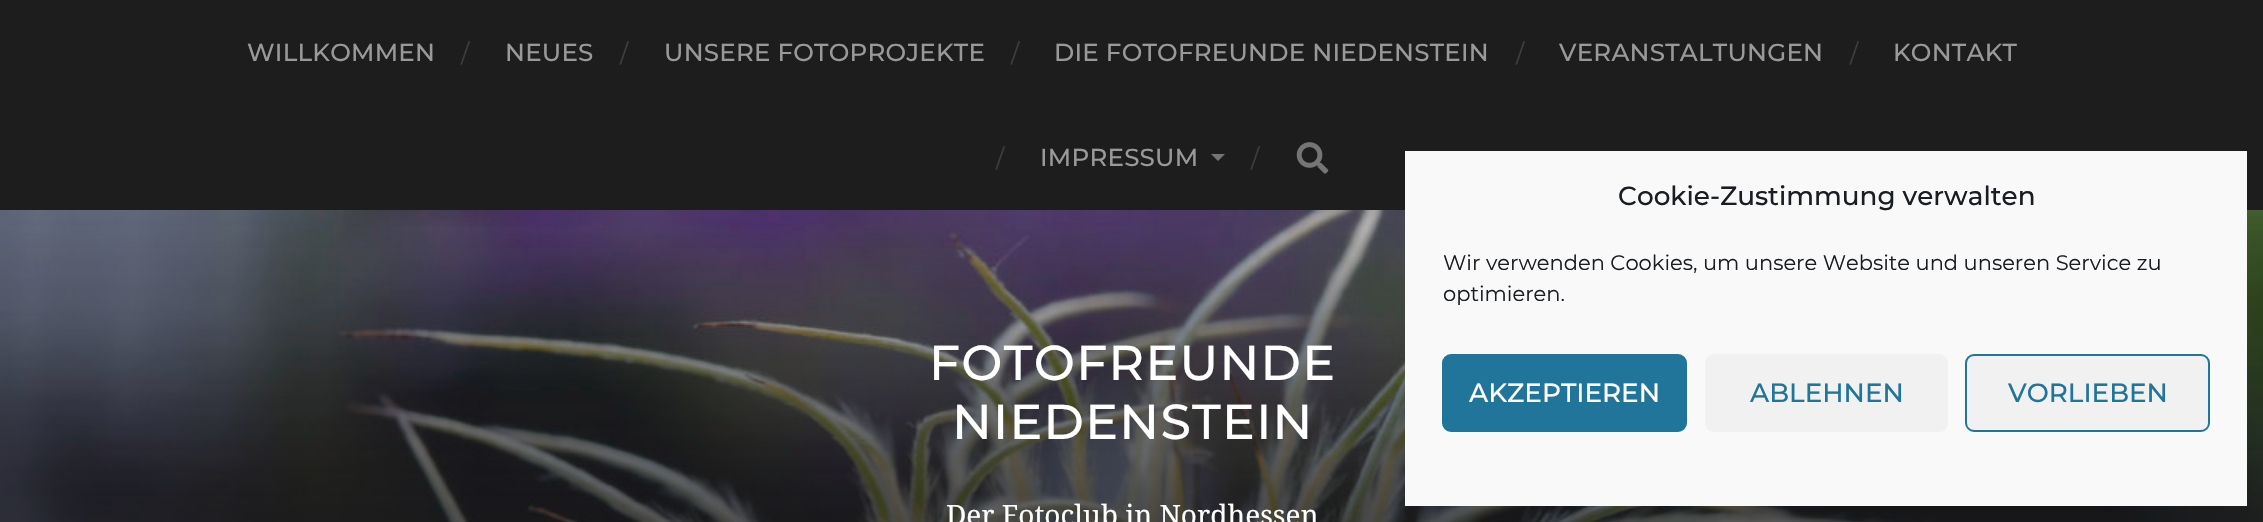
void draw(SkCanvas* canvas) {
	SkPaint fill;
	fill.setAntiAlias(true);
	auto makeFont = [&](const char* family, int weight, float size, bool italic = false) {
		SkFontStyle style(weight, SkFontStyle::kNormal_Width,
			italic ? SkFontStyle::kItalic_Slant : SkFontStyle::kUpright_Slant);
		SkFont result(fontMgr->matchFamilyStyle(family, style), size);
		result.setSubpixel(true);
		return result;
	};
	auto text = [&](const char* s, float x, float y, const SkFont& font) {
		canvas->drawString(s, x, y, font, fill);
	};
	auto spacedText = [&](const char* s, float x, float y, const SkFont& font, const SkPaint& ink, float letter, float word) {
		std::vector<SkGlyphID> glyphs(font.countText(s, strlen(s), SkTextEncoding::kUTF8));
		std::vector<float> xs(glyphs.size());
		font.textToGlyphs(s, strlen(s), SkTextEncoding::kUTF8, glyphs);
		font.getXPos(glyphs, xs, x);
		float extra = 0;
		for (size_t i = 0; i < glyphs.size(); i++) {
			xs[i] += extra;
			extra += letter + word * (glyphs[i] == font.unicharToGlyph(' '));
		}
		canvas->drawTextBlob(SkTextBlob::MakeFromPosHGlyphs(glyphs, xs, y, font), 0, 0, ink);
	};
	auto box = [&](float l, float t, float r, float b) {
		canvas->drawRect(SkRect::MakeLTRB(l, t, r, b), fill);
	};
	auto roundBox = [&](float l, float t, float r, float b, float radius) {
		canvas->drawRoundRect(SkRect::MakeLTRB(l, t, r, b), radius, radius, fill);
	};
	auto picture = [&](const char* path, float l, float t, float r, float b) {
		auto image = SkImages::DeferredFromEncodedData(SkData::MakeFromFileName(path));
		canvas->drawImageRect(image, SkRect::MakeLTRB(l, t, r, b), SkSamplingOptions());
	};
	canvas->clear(0xFF1D1D1D);
	fill.setColor(0xFF757575);
	canvas->drawPath(SkPathBuilder().moveTo(1211, 154).lineTo(1225, 154).lineTo(1218, 161).close().detach(), fill);
	picture("image0.png", 1296, 142, 1329, 174);
	picture("image1.png", 0, 210, 2263, 522);
	fill.setColor(0xFFF9F9F9);
	box(1405, 151, 2247, 506);
	fill.setColor(0xFF21759B);
	canvas->drawRoundRect(SkRect::MakeLTRB(1443, 355, 1686, 431), 8, 8, fill);
	fill.setStyle(SkPaint::kStroke_Style);
	fill.setStrokeWidth(2);
	canvas->drawRoundRect(SkRect::MakeLTRB(1443, 355, 1686, 431), 8, 8, fill);
	fill.setStyle(SkPaint::kFill_Style);
	fill.setColor(0xFFF1F1F1);
	roundBox(1705, 354, 1948, 432, 9);
	canvas->drawRoundRect(SkRect::MakeLTRB(1966, 355, 2209, 431), 8, 8, fill);
	fill.setStyle(SkPaint::kStroke_Style);
	fill.setColor(0xFF21759B);
	canvas->drawRoundRect(SkRect::MakeLTRB(1966, 355, 2209, 431), 8, 8, fill);
	auto font1 = makeFont("Montserrat", 100, 24.5f);
	fill.setStyle(SkPaint::kFill_Style);
	fill.setColor(0xFF999999);
	spacedText("WILLKOMMEN", 247, 61, font1, fill, 0.25f, 0);
	auto font2 = makeFont("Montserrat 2", 100, 24.5f);
	fill.setColor(0xFF3D3D3D);
	text("/", 461, 62, font2);
	fill.setColor(0xFF999999);
	spacedText("NEUES", 505, 61, font1, fill, 0.25f, 0);
	fill.setColor(0xFF3D3D3D);
	text("/", 620, 62, font2);
	fill.setColor(0xFF999999);
	spacedText("UNSERE FOTOPROJEKTE", 664, 61, font1, fill, 0.25f, 0);
	fill.setColor(0xFF3D3D3D);
	text("/", 1011, 62, font2);
	fill.setColor(0xFF999999);
	spacedText("DIE FOTOFREUNDE NIEDENSTEIN", 1054, 61, font1, fill, 0.25f, 0);
	fill.setColor(0xFF3D3D3D);
	text("/", 1516, 62, font2);
	fill.setColor(0xFF999999);
	spacedText("VERANSTALTUNGEN", 1559, 61, font1, fill, 0.25f, 0);
	fill.setColor(0xFF3D3D3D);
	text("/", 1850, 62, font2);
	fill.setColor(0xFF999999);
	spacedText("KONTAKT", 1893, 61, font1, fill, 0.25f, 0);
	fill.setColor(0xFF3D3D3D);
	text("/", 996, 167, font2);
	fill.setColor(0xFF999999);
	spacedText("IMPRESSUM", 1040, 166, font1, fill, 0.25f, 0);
	fill.setColor(0xFF3D3D3D);
	text("/", 1251, 167, font2);
	auto font3 = makeFont("Montserrat", 100, 26.25f);
	fill.setColor(0xFF191E23);
	text("Cookie-Zustimmung verwalten", 1618, 205, font3);
	auto font4 = makeFont("Montserrat 2", 100, 21);
	text("Wir verwenden Cookies, um unsere Website und unseren Service zu", 1443, 270, font4);
	text("optimieren.", 1443, 301, font4);
	fill.setColor(0xFFFFFFFF);
	text("AKZEPTIEREN", 1469, 402, font3);
	fill.setColor(0xFF21759B);
	text("ABLEHNEN", 1750, 402, font3);
	text("VORLIEBEN", 2008, 402, font3);
	auto font5 = makeFont("Montserrat", 100, 49);
	fill.setColor(0xFFFFFFFF);
	spacedText("FOTOFREUNDE", 929, 380, font5, fill, 1.25f, 0);
	spacedText("NIEDENSTEIN", 952, 439, font5, fill, 1.25f, 0);
	auto font6 = makeFont("Droid Serif", 400, 28);
	text("Der Fotoclub in Nordhessen", 946, 525, font6);
}
